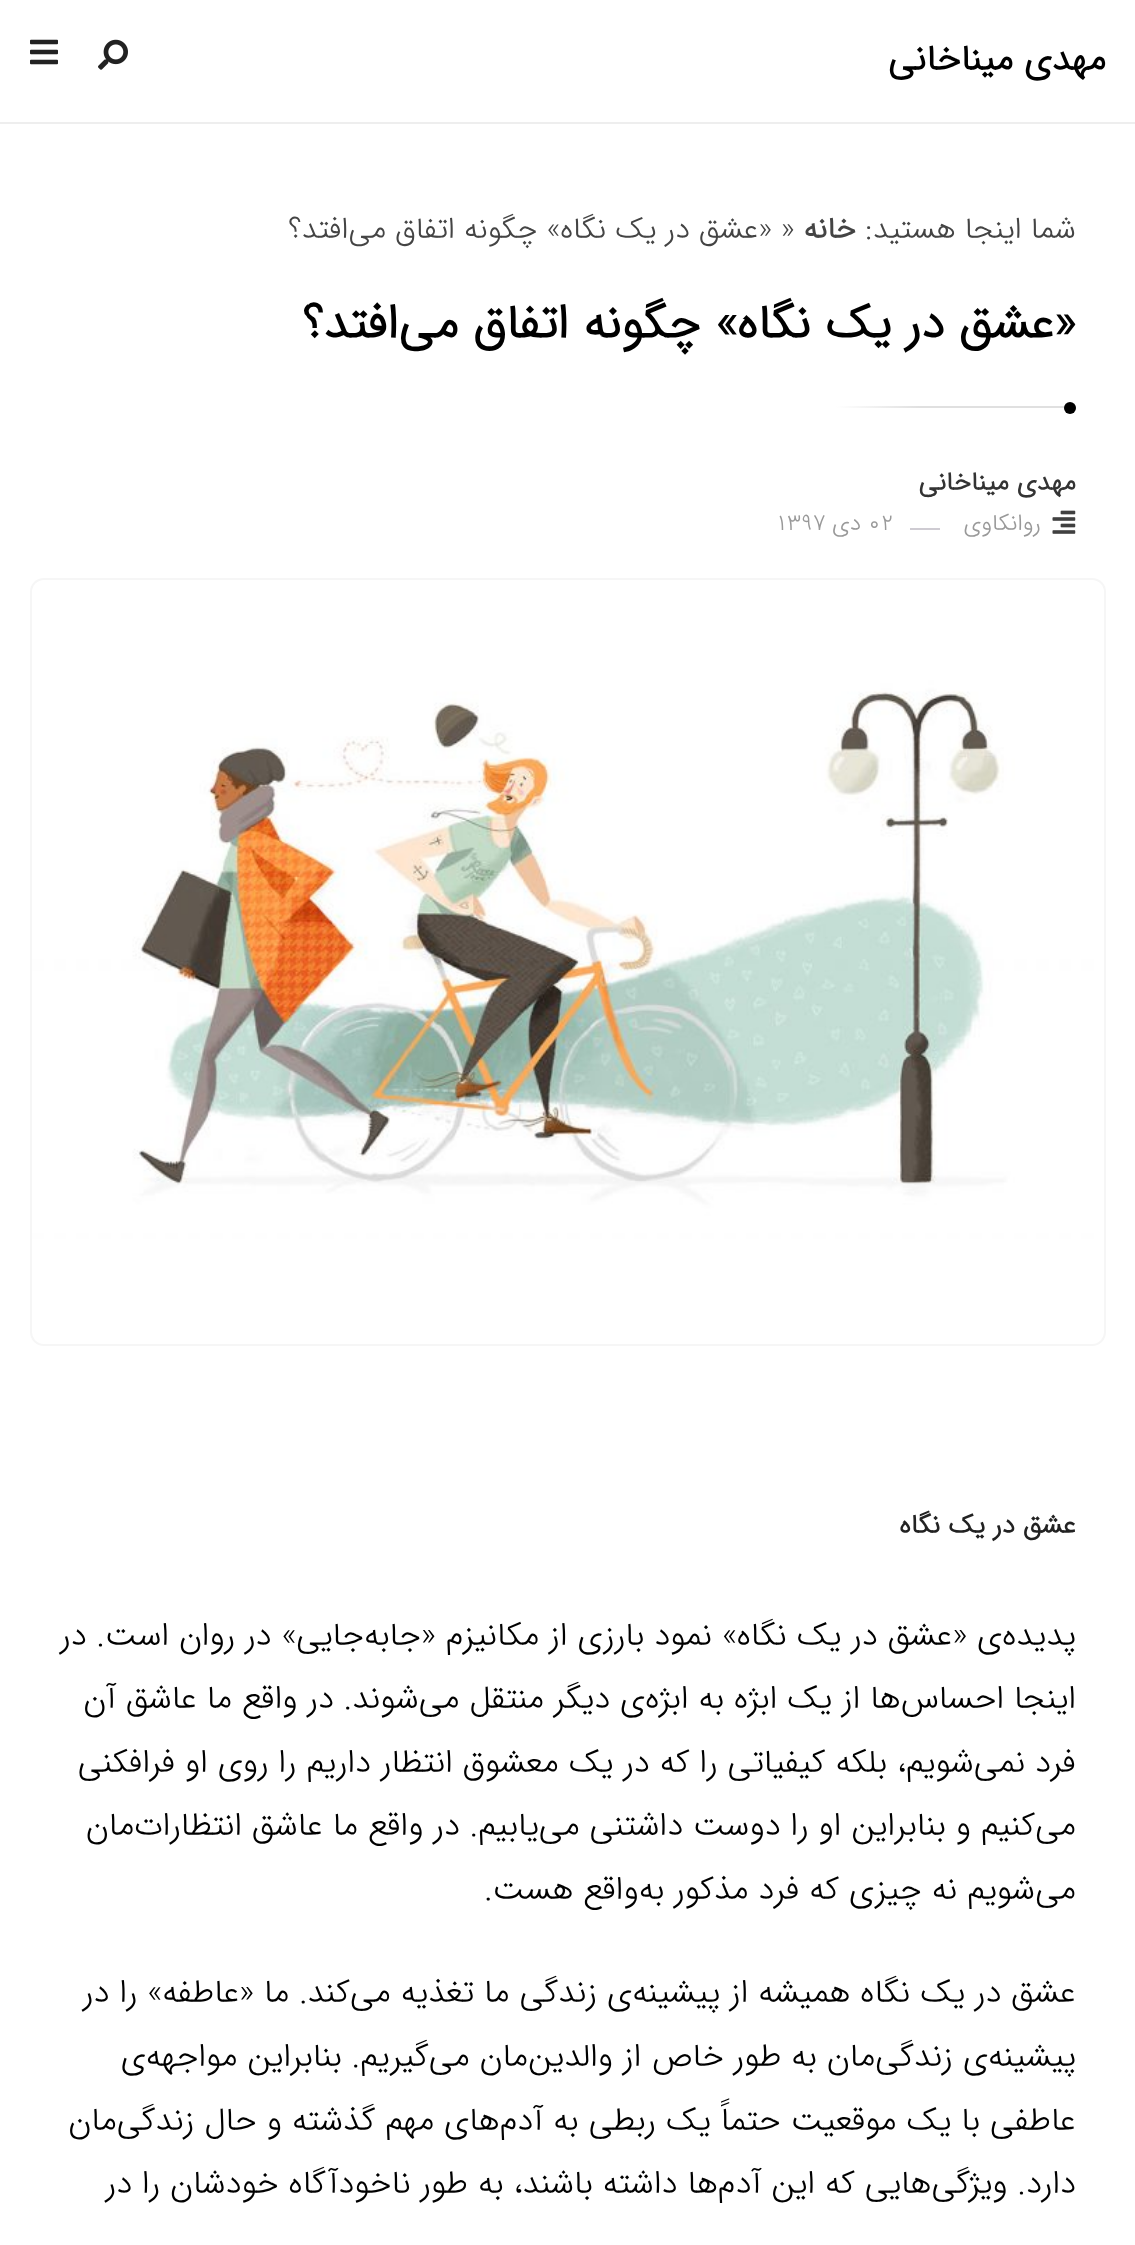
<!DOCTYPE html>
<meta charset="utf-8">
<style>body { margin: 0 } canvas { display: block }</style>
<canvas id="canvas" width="1135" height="2245"></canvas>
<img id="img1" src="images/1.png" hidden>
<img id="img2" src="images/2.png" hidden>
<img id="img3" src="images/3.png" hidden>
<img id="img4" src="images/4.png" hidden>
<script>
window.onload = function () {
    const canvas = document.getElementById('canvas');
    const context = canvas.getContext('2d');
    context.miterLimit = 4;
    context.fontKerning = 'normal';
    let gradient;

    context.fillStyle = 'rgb(255, 255, 255)';
    context.fillRect(0, 0, 1135, 2245);
    context.fillStyle = 'rgb(238, 238, 238)';
    context.fillRect(0, 122, 1135, 2);
    context.drawImage(document.getElementById('img1'), 98, 39, 30, 31);
    context.drawImage(document.getElementById('img2'), 30, 39, 28, 26);
    gradient = context.createLinearGradient(1076, 406, 836, 406);
    gradient.addColorStop(0, 'rgb(224, 224, 224)');
    gradient.addColorStop(0.65, 'rgb(224, 224, 224)');
    gradient.addColorStop(1, 'rgb(255, 255, 255)');
    context.fillStyle = gradient;
    context.fillRect(836, 406, 240, 2);
    context.fillStyle = 'rgb(0, 0, 0)';
    context.beginPath();
    context.arc(1070, 408, 6, 0, 2 * Math.PI);
    context.fill();
    context.drawImage(document.getElementById('img3'), 1052, 510, 24, 24);
    context.fillStyle = 'rgb(206, 203, 210)';
    context.fillRect(910, 528, 30, 2);
    context.fillStyle = 'rgb(246, 246, 246)';
    context.beginPath();
    context.roundRect(30, 578, 1076, 768, 14);
    context.fill();
    context.drawImage(document.getElementById('img4'), 32, 580, 1072, 764);
    context.direction = 'rtl';
    context.font = 'bold 36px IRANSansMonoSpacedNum';
    context.fillStyle = 'rgb(0, 0, 0)';
    context.fillText('مهدی میناخانی', 1106, 70);
    context.font = '300 30px IRANSansMonoSpacedNum';
    context.fillStyle = 'rgb(68, 68, 68)';
    context.fillText('شما اینجا هستید:', 1076, 238);
    context.font = 'bold 30px IRANSansMonoSpacedNum';
    context.fillText('خانه', 856, 238);
    context.direction = 'ltr';
    context.font = '300 30px IRANSansMonoSpacedNum';
    context.fillText('»', 781, 238);
    context.direction = 'rtl';
    context.fillText('«عشق در یک نگاه» چگونه اتفاق می‌افتد؟', 772, 238);
    context.font = 'bold 48px IRANSansMonoSpacedNum';
    context.fillStyle = 'rgb(0, 0, 0)';
    context.fillText('«عشق در یک نگاه» چگونه اتفاق می‌افتد؟', 1076, 338);
    context.font = 'bold 26px IRANSansMonoSpacedNum';
    context.fillStyle = 'rgb(51, 51, 51)';
    context.fillText('مهدی میناخانی', 1076, 490);
    context.font = '300 23px IRANSansMonoSpacedNum';
    context.fillStyle = 'rgb(153, 153, 153)';
    context.fillText('روانکاوی', 1041, 530);
    context.direction = 'ltr';
    context.fillText('۰۲', 868, 530);
    context.direction = 'rtl';
    context.fillText('دی', 861, 530);
    context.direction = 'ltr';
    context.fillText('۱۳۹۷', 775, 530);
    context.direction = 'rtl';
    context.font = 'bold 26.75px IRANSansMonoSpacedNum';
    context.fillStyle = 'rgb(34, 34, 34)';
    context.fillText('عشق در یک نگاه', 1076, 1533);
    context.font = '300 32.65px IRANSansMonoSpacedNum';
    context.fillStyle = 'rgb(0, 0, 0)';
    context.fillText('پدیده‌ی «عشق در یک نگاه» نمود بارزی از مکانیزم «جابه‌جایی» در روان است. در', 1076, 1645);
    context.fillText('اینجا احساس‌ها از یک ابژه به ابژه‌ی دیگر منتقل می‌شوند. در واقع ما عاشق آن', 1076, 1708);
    context.fillText('فرد نمی‌شویم، بلکه کیفیاتی را که در یک معشوق انتظار داریم را روی او فرافکنی', 1076, 1772);
    context.fillText('می‌کنیم و بنابراین او را دوست داشتنی می‌یابیم. در واقع ما عاشق انتظارات‌مان', 1076, 1835);
    context.fillText('می‌شویم نه چیزی که فرد مذکور به‌واقع هست.', 1076, 1899);
    context.fillText('عشق در یک نگاه همیشه از پیشینه‌ی زندگی ما تغذیه می‌کند. ما «عاطفه» را در', 1076, 2002);
    context.fillText('پیشینه‌ی زندگی‌مان به طور خاص از والدین‌مان می‌گیریم. بنابراین مواجهه‌ی', 1076, 2066);
    context.fillText('عاطفی با یک موقعیت حتماً یک ربطی به آدم‌های مهم گذشته و حال زندگی‌مان', 1076, 2130);
    context.fillText('دارد. ویژگی‌هایی که این آدم‌ها داشته باشند، به طور ناخودآگاه خودشان را در', 1076, 2193);
};
</script>
